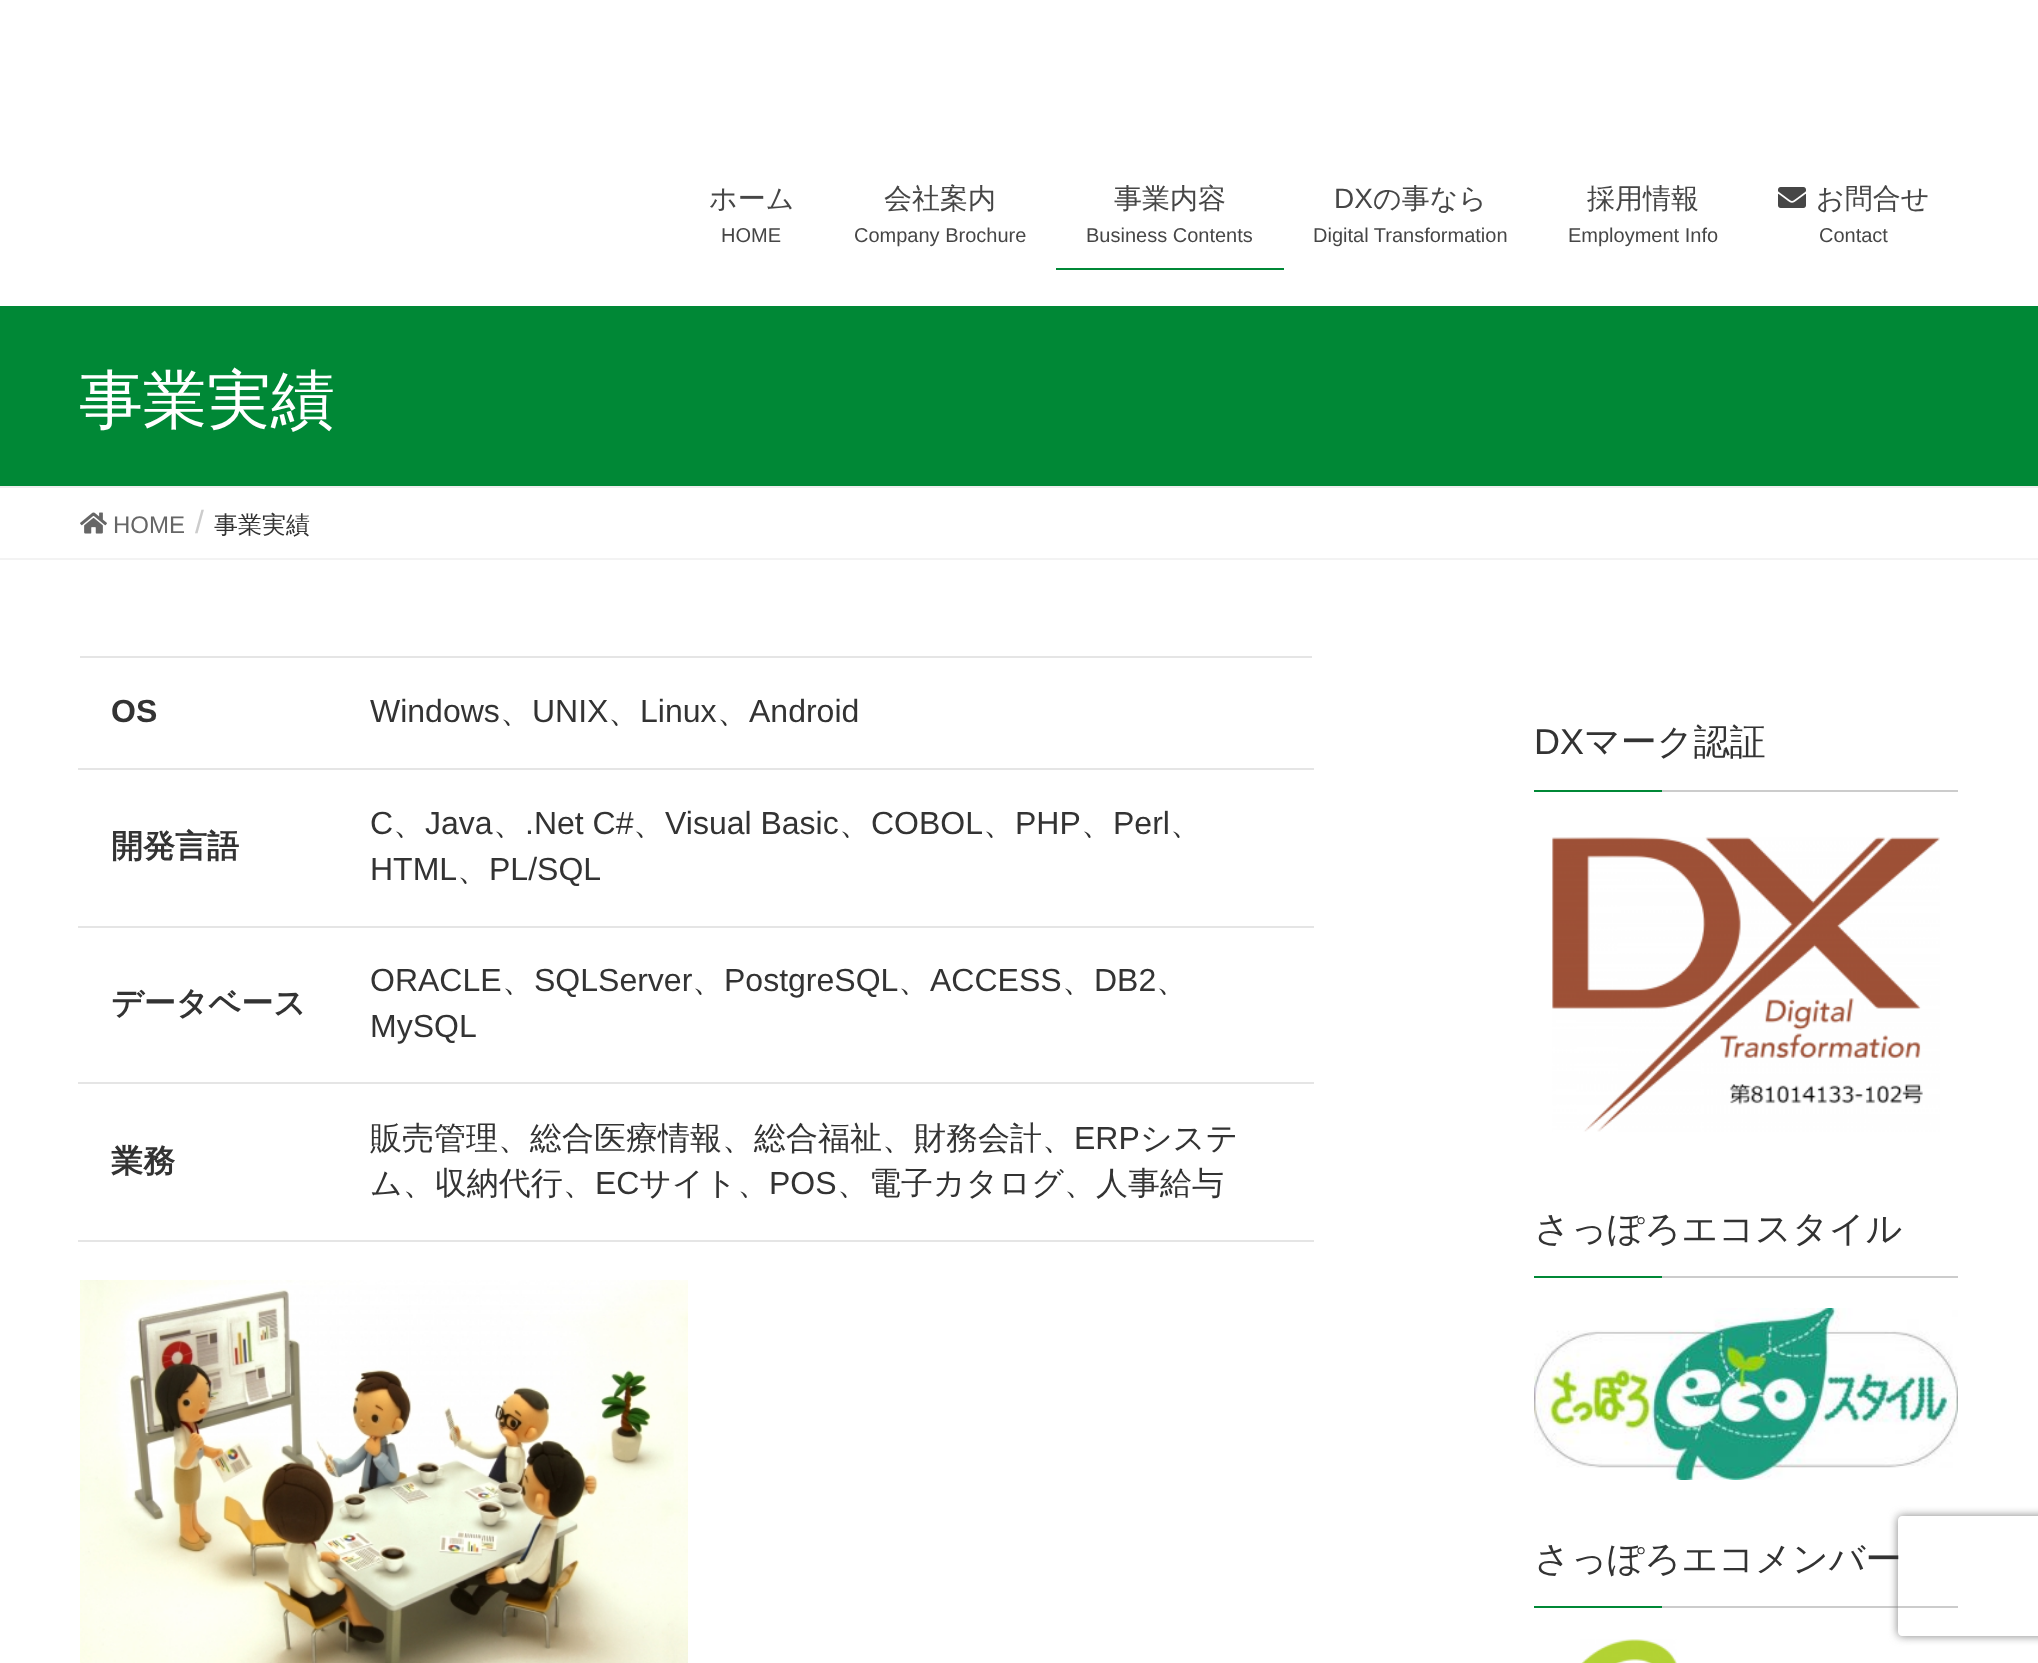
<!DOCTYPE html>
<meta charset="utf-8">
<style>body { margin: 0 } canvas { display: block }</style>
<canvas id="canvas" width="2038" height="1663"></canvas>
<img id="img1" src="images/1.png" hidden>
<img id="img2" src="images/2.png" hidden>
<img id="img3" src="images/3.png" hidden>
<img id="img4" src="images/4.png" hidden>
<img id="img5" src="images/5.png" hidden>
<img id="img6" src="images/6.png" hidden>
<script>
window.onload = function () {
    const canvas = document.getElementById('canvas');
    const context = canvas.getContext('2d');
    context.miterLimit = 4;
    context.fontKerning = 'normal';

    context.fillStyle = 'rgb(255, 255, 255)';
    context.fillRect(0, 0, 2038, 1663);
    context.fillStyle = 'rgb(0, 136, 54)';
    context.fillRect(1056, 268, 228, 2);
    context.drawImage(document.getElementById('img1'), 1778, 187, 28, 21);
    context.fillRect(0, 306, 2038, 180);
    context.fillStyle = 'rgb(238, 238, 238)';
    context.fillRect(0, 486, 2038, 2);
    context.fillStyle = 'rgb(243, 243, 243)';
    context.fillRect(0, 558, 2038, 2);
    context.drawImage(document.getElementById('img2'), 80, 512, 27, 22);
    context.fillStyle = 'rgb(229, 229, 229)';
    context.fillRect(80, 656, 1232, 2);
    context.fillRect(78, 768, 1236, 2);
    context.fillRect(78, 926, 1236, 2);
    context.fillRect(78, 1082, 1236, 2);
    context.fillRect(78, 1240, 1236, 2);
    context.drawImage(document.getElementById('img3'), 80, 1280, 608, 383);
    context.fillStyle = 'rgb(204, 204, 204)';
    context.fillRect(1662, 790, 296, 2);
    context.fillStyle = 'rgb(0, 136, 54)';
    context.fillRect(1534, 790, 128, 2);
    context.drawImage(document.getElementById('img4'), 1552, 837, 388, 295);
    context.fillStyle = 'rgb(204, 204, 204)';
    context.fillRect(1662, 1276, 296, 2);
    context.fillStyle = 'rgb(0, 136, 54)';
    context.fillRect(1534, 1276, 128, 2);
    context.drawImage(document.getElementById('img5'), 1534, 1308, 424, 172);
    context.fillStyle = 'rgb(204, 204, 204)';
    context.fillRect(1662, 1606, 296, 2);
    context.fillStyle = 'rgb(0, 136, 54)';
    context.fillRect(1534, 1606, 128, 2);
    context.drawImage(document.getElementById('img6'), 1580, 1639, 97, 24);
    context.save();
    context.beginPath();
    context.moveTo(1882, 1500);
    context.lineTo(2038, 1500);
    context.lineTo(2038, 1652);
    context.lineTo(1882, 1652);
    context.closePath();
    context.moveTo(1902, 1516);
    context.lineTo(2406, 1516);
    context.bezierCurveTo(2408, 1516, 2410, 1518, 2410, 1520);
    context.lineTo(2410, 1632);
    context.bezierCurveTo(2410, 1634, 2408, 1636, 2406, 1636);
    context.lineTo(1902, 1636);
    context.bezierCurveTo(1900, 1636, 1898, 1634, 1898, 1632);
    context.lineTo(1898, 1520);
    context.bezierCurveTo(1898, 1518, 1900, 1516, 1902, 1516);
    context.closePath();
    context.clip('evenodd');
    context.fillStyle = 'rgb(128, 128, 128)';
    context.filter = 'blur(5px)';
    context.beginPath();
    context.roundRect(1898, 1516, 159, 120, 4);
    context.fill();
    context.filter = 'none';
    context.restore();
    context.font = '500 28px WenQuanYi Zen Hei';
    context.fillStyle = 'rgb(70, 70, 70)';
    context.fillText('ホーム', 709, 208);
    context.font = '20px Liberation Sans';
    context.fillText('HOME', 721, 242);
    context.font = '500 28px WenQuanYi Zen Hei';
    context.fillText('会社案内', 884, 208);
    context.font = '20px Liberation Sans';
    context.fillText('Company Brochure', 854, 242);
    context.font = '500 28px WenQuanYi Zen Hei';
    context.fillText('事業内容', 1114, 208);
    context.font = '20px Liberation Sans';
    context.fillText('Business Contents', 1086, 242);
    context.font = '28px Liberation Sans';
    context.fillText('DX', 1334, 208);
    context.font = '500 28px WenQuanYi Zen Hei';
    context.fillText('の事なら', 1373, 208);
    context.font = '20px Liberation Sans';
    context.fillText('Digital Transformation', 1313, 242);
    context.font = '500 28px WenQuanYi Zen Hei';
    context.fillText('採用情報', 1587, 208);
    context.font = '20px Liberation Sans';
    context.fillText('Employment Info', 1568, 242);
    context.font = '500 28px WenQuanYi Zen Hei';
    context.fillText('お問合せ', 1816, 208);
    context.font = '20px Liberation Sans';
    context.fillText('Contact', 1819, 242);
    context.font = '500 64px WenQuanYi Zen Hei';
    context.fillStyle = 'rgb(255, 255, 255)';
    context.fillText('事業実績', 79, 422);
    context.font = '24px Liberation Sans';
    context.fillStyle = 'rgb(102, 102, 102)';
    context.fillText('HOME', 113, 533);
    context.font = '32px Liberation Sans';
    context.fillStyle = 'rgb(204, 204, 204)';
    context.fillText('/', 195, 533);
    context.font = '500 24px WenQuanYi Zen Hei';
    context.fillStyle = 'rgb(51, 51, 51)';
    context.fillText('事業実績', 214, 533);
    context.font = 'bold 32px Liberation Sans';
    context.fillText('OS', 111, 722);
    context.font = '32px Liberation Sans';
    context.fillText('Windows', 370, 722);
    context.font = '500 32px WenQuanYi Zen Hei';
    context.fillText('、', 500, 722);
    context.font = '32px Liberation Sans';
    context.fillText('UNIX', 532, 722);
    context.font = '500 32px WenQuanYi Zen Hei';
    context.fillText('、', 608, 722);
    context.font = '32px Liberation Sans';
    context.fillText('Linux', 640, 722);
    context.font = '500 32px WenQuanYi Zen Hei';
    context.fillText('、', 717, 722);
    context.font = '32px Liberation Sans';
    context.fillText('Android', 749, 722);
    context.font = 'bold 32px WenQuanYi Zen Hei';
    context.fillText('開発言語', 111, 857);
    context.font = '32px Liberation Sans';
    context.fillText('C', 370, 834);
    context.font = '500 32px WenQuanYi Zen Hei';
    context.fillText('、', 393, 834);
    context.font = '32px Liberation Sans';
    context.fillText('Java', 425, 834);
    context.font = '500 32px WenQuanYi Zen Hei';
    context.fillText('、', 493, 834);
    context.font = '32px Liberation Sans';
    context.fillText('.Net C#', 525, 834);
    context.font = '500 32px WenQuanYi Zen Hei';
    context.fillText('、', 633, 834);
    context.font = '32px Liberation Sans';
    context.fillText('Visual Basic', 665, 834);
    context.font = '500 32px WenQuanYi Zen Hei';
    context.fillText('、', 839, 834);
    context.font = '32px Liberation Sans';
    context.fillText('COBOL', 871, 834);
    context.font = '500 32px WenQuanYi Zen Hei';
    context.fillText('、', 983, 834);
    context.font = '32px Liberation Sans';
    context.fillText('PHP', 1015, 834);
    context.font = '500 32px WenQuanYi Zen Hei';
    context.fillText('、', 1081, 834);
    context.font = '32px Liberation Sans';
    context.fillText('Perl', 1113, 834);
    context.font = '500 32px WenQuanYi Zen Hei';
    context.fillText('、', 1170, 834);
    context.font = '32px Liberation Sans';
    context.fillText('HTML', 370, 880);
    context.font = '500 32px WenQuanYi Zen Hei';
    context.fillText('、', 457, 880);
    context.font = '32px Liberation Sans';
    context.fillText('PL/SQL', 489, 880);
    context.font = 'bold 32px WenQuanYi Zen Hei';
    context.fillText('データベース', 111, 1014);
    context.font = '32px Liberation Sans';
    context.fillText('ORACLE', 370, 991);
    context.font = '500 32px WenQuanYi Zen Hei';
    context.fillText('、', 502, 991);
    context.font = '32px Liberation Sans';
    context.fillText('SQLServer', 534, 991);
    context.font = '500 32px WenQuanYi Zen Hei';
    context.fillText('、', 692, 991);
    context.font = '32px Liberation Sans';
    context.fillText('PostgreSQL', 724, 991);
    context.font = '500 32px WenQuanYi Zen Hei';
    context.fillText('、', 898, 991);
    context.font = '32px Liberation Sans';
    context.fillText('ACCESS', 930, 991);
    context.font = '500 32px WenQuanYi Zen Hei';
    context.fillText('、', 1062, 991);
    context.font = '32px Liberation Sans';
    context.fillText('DB2', 1094, 991);
    context.font = '500 32px WenQuanYi Zen Hei';
    context.fillText('、', 1156, 991);
    context.font = '32px Liberation Sans';
    context.fillText('MySQL', 370, 1037);
    context.font = 'bold 32px WenQuanYi Zen Hei';
    context.fillText('業務', 111, 1172);
    context.font = '500 32px WenQuanYi Zen Hei';
    context.fillText('販売管理、総合医療情報、総合福祉、財務会計、', 370, 1149);
    context.font = '32px Liberation Sans';
    context.fillText('ERP', 1074, 1149);
    context.font = '500 32px WenQuanYi Zen Hei';
    context.fillText('システ', 1140, 1149);
    context.fillText('ム、収納代行、', 370, 1194);
    context.font = '32px Liberation Sans';
    context.fillText('EC', 595, 1194);
    context.font = '500 32px WenQuanYi Zen Hei';
    context.fillText('サイト、', 639, 1194);
    context.font = '32px Liberation Sans';
    context.fillText('POS', 769, 1194);
    context.font = '500 32px WenQuanYi Zen Hei';
    context.fillText('、電子カタログ、人事給与', 837, 1194);
    context.font = '36px Liberation Sans';
    context.fillText('DX', 1534, 754);
    context.font = '500 36px WenQuanYi Zen Hei';
    context.fillText('マーク認証', 1584, 754);
    context.fillText('さっぽろエコスタイル', 1534, 1241);
    context.fillText('さっぽろエコメンバー', 1534, 1571);
};
</script>
